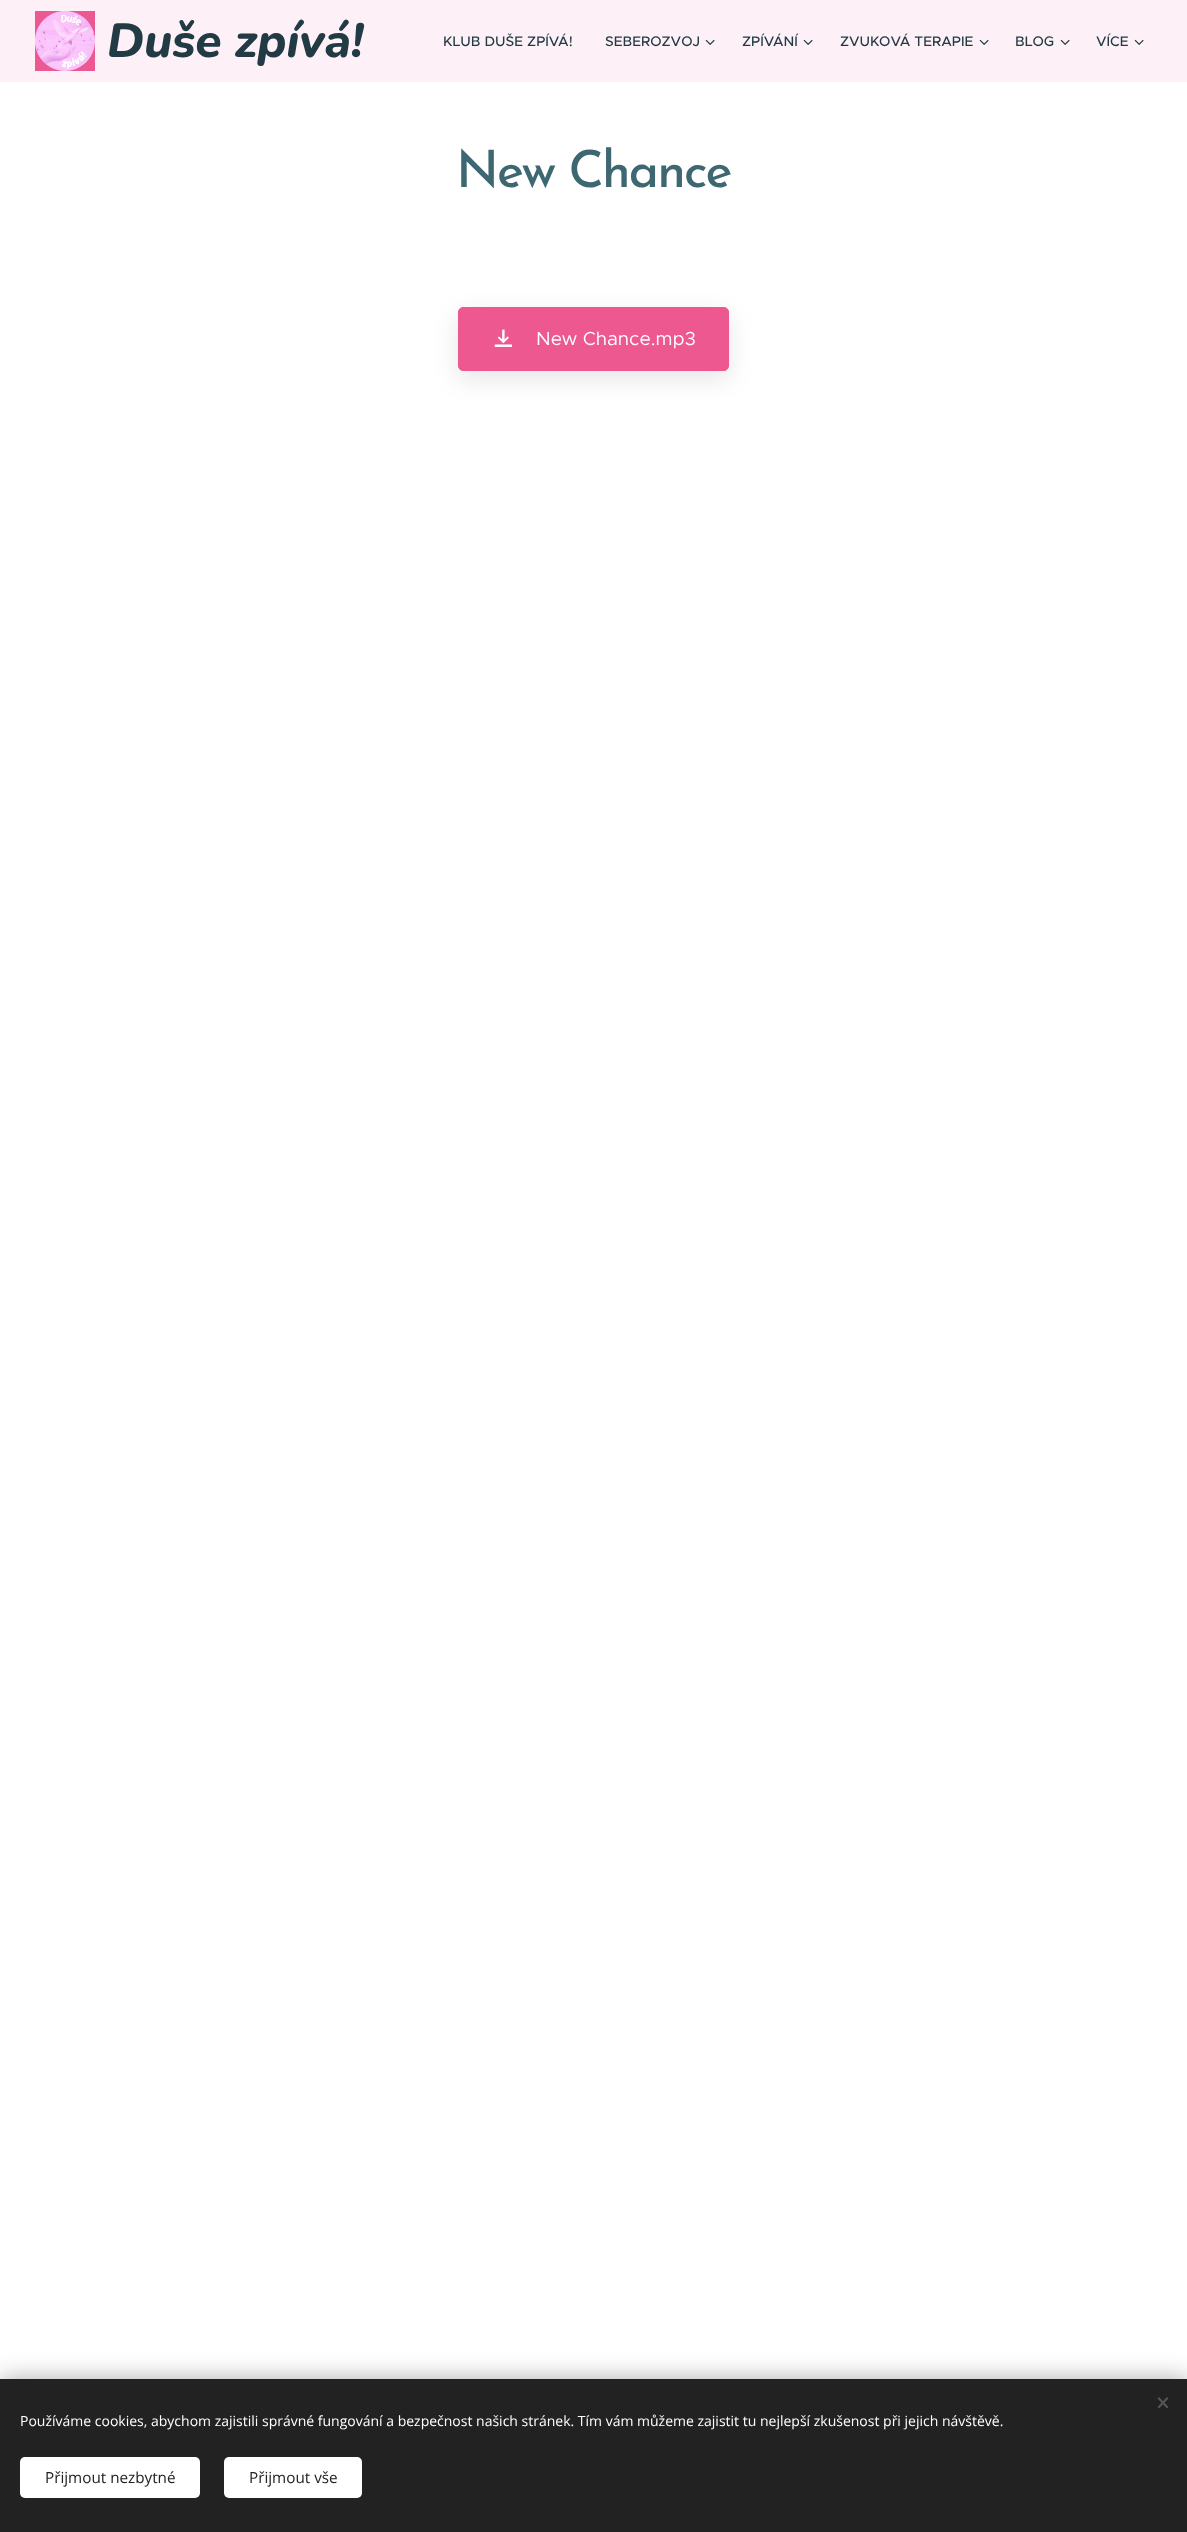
<!DOCTYPE html>
<meta charset="utf-8">
<style>body { margin: 0 } canvas { display: block }</style>
<canvas id="canvas" width="1187" height="2532"></canvas>
<img id="img1" src="images/1.png" hidden>
<img id="img2" src="images/2.png" hidden>
<img id="img3" src="images/3.png" hidden>
<script>
window.onload = function () {
    const canvas = document.getElementById('canvas');
    const context = canvas.getContext('2d');
    context.miterLimit = 4;
    context.fontKerning = 'normal';

    context.fillStyle = 'rgb(255, 255, 255)';
    context.fillRect(0, 0, 1187, 2532);
    context.fillStyle = 'rgb(253, 240, 247)';
    context.fillRect(0, 0, 1187, 82);
    context.drawImage(document.getElementById('img1'), 35, 11, 60, 60);
    context.drawImage(document.getElementById('img2'), 705, 39, 10, 6);
    context.drawImage(document.getElementById('img2'), 803, 39, 10, 6);
    context.drawImage(document.getElementById('img2'), 979, 39, 10, 6);
    context.drawImage(document.getElementById('img2'), 1060, 39, 10, 6);
    context.drawImage(document.getElementById('img2'), 1134, 39, 10, 6);
    context.fillStyle = 'rgba(0, 0, 0, 0.1)';
    context.filter = 'blur(12.5px)';
    context.beginPath();
    context.roundRect(458, 315, 271, 64, 5);
    context.fill();
    context.filter = 'none';
    context.fillStyle = 'rgb(237, 88, 145)';
    context.beginPath();
    context.roundRect(458.5, 307.5, 270, 63, 4.5);
    context.fill();
    context.strokeStyle = 'rgb(237, 88, 145)';
    context.stroke();
    context.drawImage(document.getElementById('img3'), 494, 329, 18, 18);
    context.fillStyle = 'rgba(0, 0, 0, 0.33)';
    context.filter = 'blur(12.5px)';
    context.beginPath();
    context.rect(0, 2379, 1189, 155);
    context.fill();
    context.filter = 'none';
    context.fillStyle = 'rgb(34, 34, 34)';
    context.fillRect(0, 2379, 1187, 153);
    context.fillStyle = 'rgb(85, 85, 85)';
    context.beginPath();
    context.moveTo(1157.5, 2407);
    context.lineTo(1167, 2397);
    context.lineTo(1168.5, 2398.5);
    context.lineTo(1159, 2408.5);
    context.closePath();
    context.fill();
    context.beginPath();
    context.moveTo(1159, 2397);
    context.lineTo(1168.5, 2407);
    context.lineTo(1167, 2408.5);
    context.lineTo(1157.5, 2398.5);
    context.closePath();
    context.fill();
    context.fillStyle = 'rgb(255, 255, 255)';
    context.beginPath();
    context.roundRect(20, 2457, 180, 41, 5);
    context.fill();
    context.beginPath();
    context.roundRect(224, 2457, 138, 41, 5);
    context.fill();
    context.letterSpacing = '-0.25px';
    context.font = 'italic 800 48px Nunito';
    context.fillStyle = 'rgb(33, 58, 67)';
    context.fillText('Duše zpívá!', 107, 57);
    context.letterSpacing = '0px';
    context.font = '500 14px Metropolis';
    context.fillText('KLUB DUŠE ZPÍVÁ!', 443, 46);
    context.fillText('SEBEROZVOJ', 605, 46);
    context.fillText('ZPÍVÁNÍ', 742, 46);
    context.fillText('ZVUKOVÁ TERAPIE', 840, 46);
    context.fillText('BLOG', 1015, 46);
    context.fillText('VÍCE', 1096, 46);
    context.letterSpacing = '-2px';
    context.font = '500 51.25px Josefin Sans';
    context.fillStyle = 'rgb(61, 104, 114)';
    context.fillText('New Chance', 456, 187);
    context.letterSpacing = '0px';
    context.font = '19px Metropolis';
    context.fillStyle = 'rgb(255, 255, 255)';
    context.fillText('New Chance.mp3', 536, 345);
    context.font = '14px Open Sans';
    context.fillText('Používáme cookies, abychom zajistili správné fungování a bezpečnost našich stránek. Tím vám můžeme zajistit tu nejlepší zkušenost při jejich návštěvě.', 20, 2426);
    context.font = '15.25px Open Sans';
    context.fillStyle = 'rgb(34, 34, 34)';
    context.fillText('Přijmout nezbytné', 45, 2483);
    context.fillText('Přijmout vše', 249, 2483);
};
</script>
